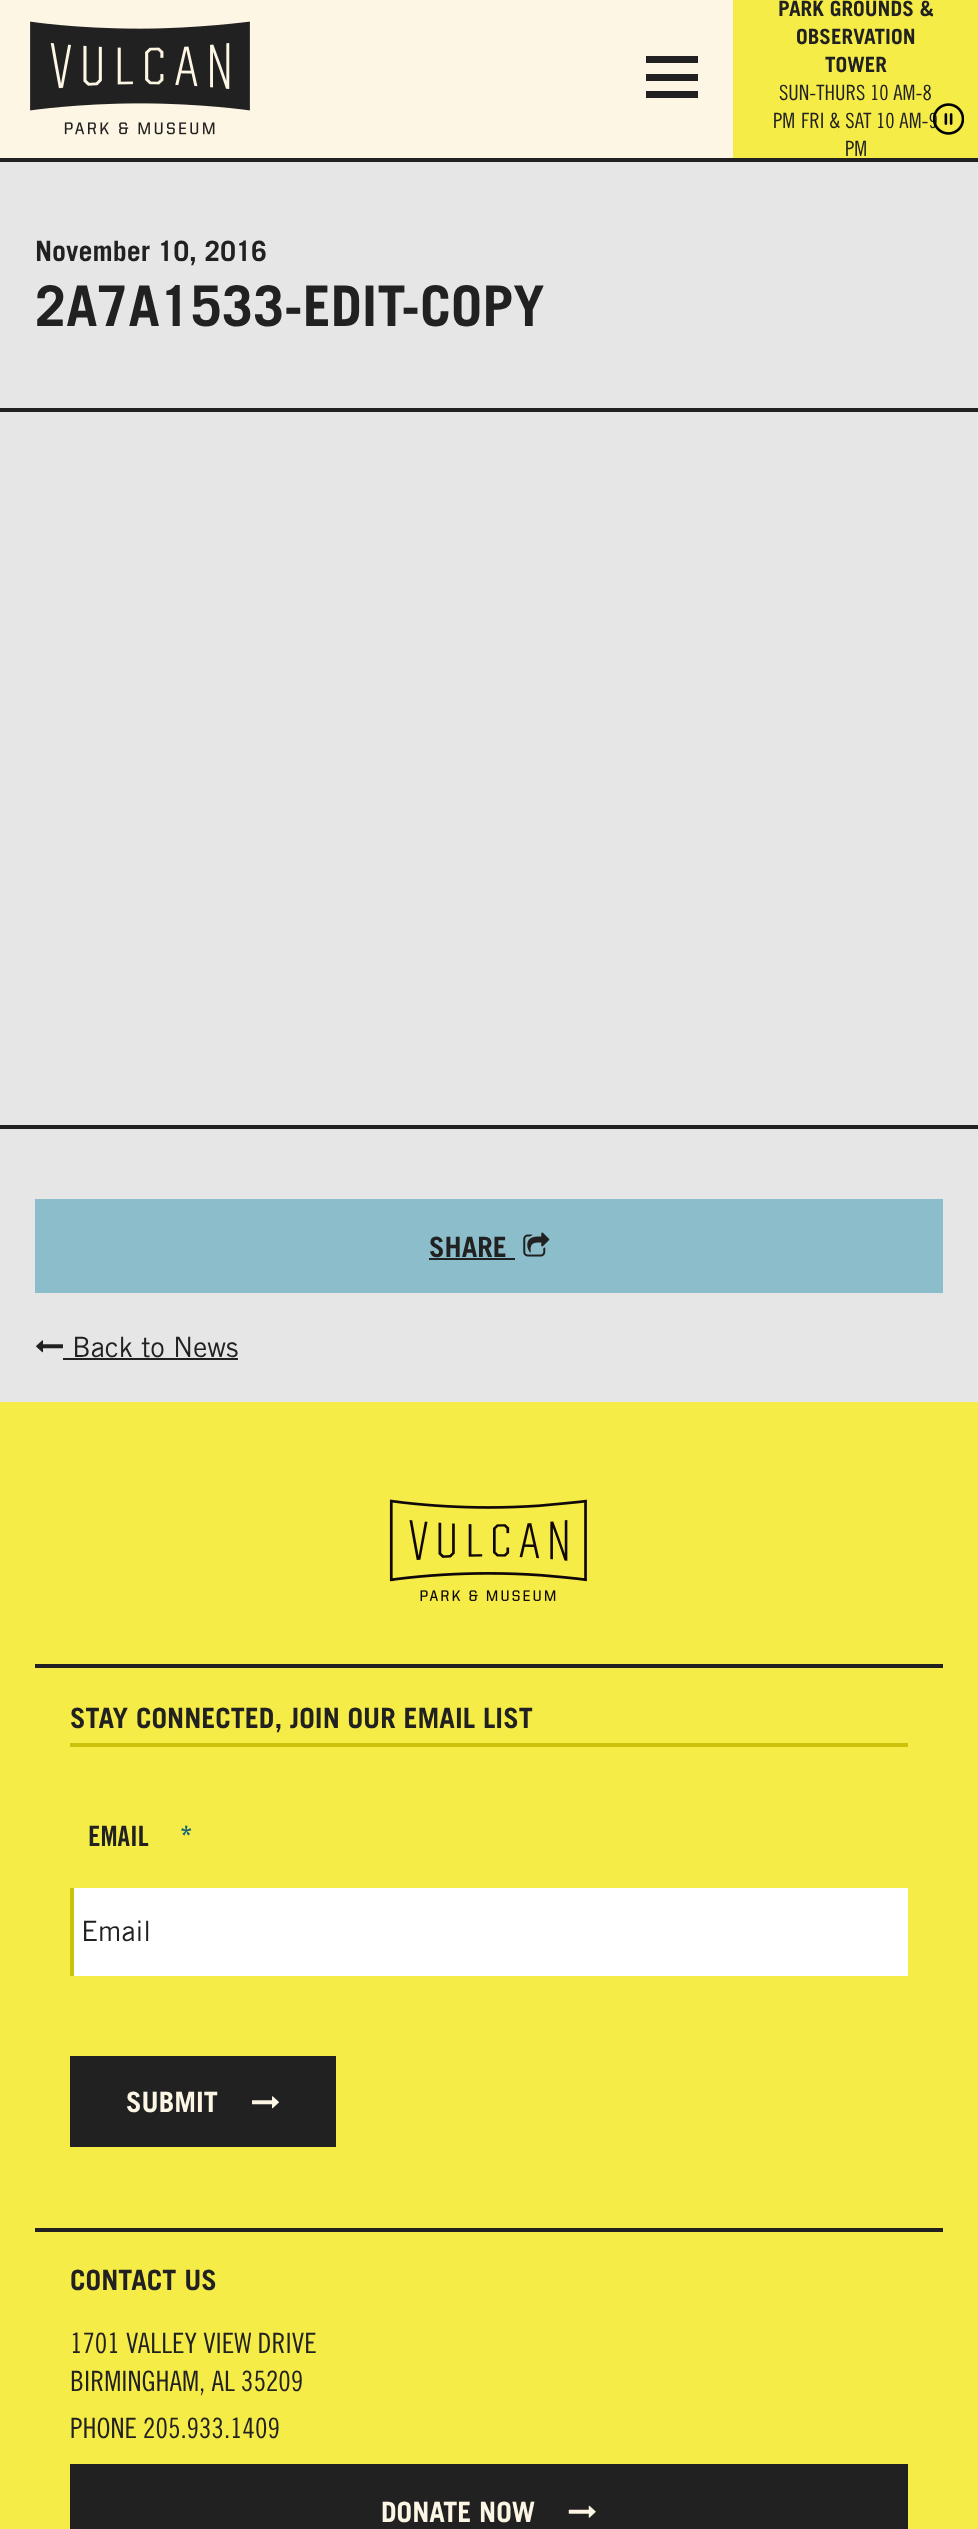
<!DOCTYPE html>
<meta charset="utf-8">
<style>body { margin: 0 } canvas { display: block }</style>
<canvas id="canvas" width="978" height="2529"></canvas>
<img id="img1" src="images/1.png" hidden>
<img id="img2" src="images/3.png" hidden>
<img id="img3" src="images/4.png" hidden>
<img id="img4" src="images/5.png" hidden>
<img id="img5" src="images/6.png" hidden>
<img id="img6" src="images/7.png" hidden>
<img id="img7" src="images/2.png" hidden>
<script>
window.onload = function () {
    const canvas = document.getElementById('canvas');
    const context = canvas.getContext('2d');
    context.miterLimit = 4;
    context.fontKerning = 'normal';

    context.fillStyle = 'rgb(230, 230, 230)';
    context.fillRect(0, 0, 978, 2529);
    context.fillStyle = 'rgb(254, 246, 228)';
    context.fillRect(0, 0, 733, 158);
    context.drawImage(document.getElementById('img1'), 30, 21, 220, 114);
    context.fillStyle = 'rgb(33, 33, 33)';
    context.fillRect(646, 56, 52, 7);
    context.fillRect(646, 74, 52, 7);
    context.fillRect(646, 91, 52, 7);
    context.fillStyle = 'rgb(245, 236, 72)';
    context.fillRect(733, 0, 245, 158);
    context.fillStyle = 'rgb(33, 33, 33)';
    context.fillRect(0, 158, 978, 4);
    context.fillRect(0, 408, 978, 4);
    context.fillRect(0, 1125, 978, 4);
    context.fillStyle = 'rgb(140, 189, 202)';
    context.fillRect(35, 1199, 908, 94);
    context.fillStyle = 'rgb(33, 33, 33)';
    context.fillRect(429, 1258, 86, 2);
    context.drawImage(document.getElementById('img2'), 523, 1232, 27, 25);
    context.drawImage(document.getElementById('img3'), 36, 1340, 27, 13);
    context.fillRect(63, 1358, 175, 2);
    context.fillStyle = 'rgb(245, 236, 72)';
    context.fillRect(0, 1402, 978, 1127);
    context.fillStyle = 'rgb(33, 33, 33)';
    context.fillRect(35, 1664, 908, 4);
    context.drawImage(document.getElementById('img4'), 389, 1499, 198, 102);
    context.fillRect(35, 2228, 908, 4);
    context.fillStyle = 'rgb(204, 194, 11)';
    context.fillRect(70, 1743, 838, 4);
    context.fillStyle = 'rgb(255, 255, 255)';
    context.fillRect(74, 1888, 834, 88);
    context.fillStyle = 'rgb(204, 194, 11)';
    context.fillRect(70, 1888, 4, 88);
    context.fillStyle = 'rgb(33, 33, 33)';
    context.fillRect(70, 2056, 266, 91);
    context.drawImage(document.getElementById('img5'), 252, 2096, 27, 13);
    context.fillRect(70, 2464, 838, 65);
    context.drawImage(document.getElementById('img6'), 568, 2505, 28, 13);
    context.font = 'bold 21px Trade Gothic';
    context.fillText('PARK GROUNDS &', 778, 16);
    context.fillText('OBSERVATION', 796, 44);
    context.fillText('TOWER', 825, 72);
    context.font = '21px "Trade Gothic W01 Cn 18"';
    context.fillText('SUN-THURS 10 AM-8', 779, 100);
    context.fillText('PM', 773, 128);
    context.fillText('FRI & SAT 10 AM-9', 801, 128);
    context.fillText('PM', 845, 156);
    context.drawImage(document.getElementById('img7'), 933, 103, 31, 32);
    context.font = 'bold 28px Trade Gothic';
    context.fillText('November 10, 2016', 35, 261);
    context.font = 'bold 56px Trade Gothic';
    context.fillText('2A7A1533-EDIT-COPY', 35, 326);
    context.font = 'bold 28px Trade Gothic';
    context.fillText('SHARE', 429, 1257);
    context.font = '28px Trade Gothic';
    context.fillText('Back to News', 72, 1357);
    context.font = 'bold 28px Trade Gothic';
    context.fillText('STAY CONNECTED, JOIN OUR EMAIL LIST', 70, 1728);
    context.font = 'bold 28px "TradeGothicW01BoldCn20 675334"';
    context.fillText('EMAIL', 88, 1846);
    context.fillStyle = 'rgb(20, 100, 118)';
    context.fillText('*', 180, 1846);
    context.font = '28px Trade Gothic';
    context.fillStyle = 'rgb(33, 33, 33)';
    context.fillText('Email', 81, 1941);
    context.font = 'bold 28px Trade Gothic';
    context.fillStyle = 'rgb(254, 246, 228)';
    context.fillText('SUBMIT', 126, 2112);
    context.fillStyle = 'rgb(33, 33, 33)';
    context.fillText('CONTACT US', 70, 2290);
    context.font = '28px "Trade Gothic W01 Cn 18"';
    context.fillText('1701 VALLEY VIEW DRIVE', 70, 2353);
    context.fillText('BIRMINGHAM, AL 35209', 70, 2391);
    context.fillText('PHONE 205.933.1409', 70, 2438);
    context.font = 'bold 28px Trade Gothic';
    context.fillStyle = 'rgb(254, 246, 228)';
    context.fillText('DONATE NOW', 381, 2522);
};
</script>
